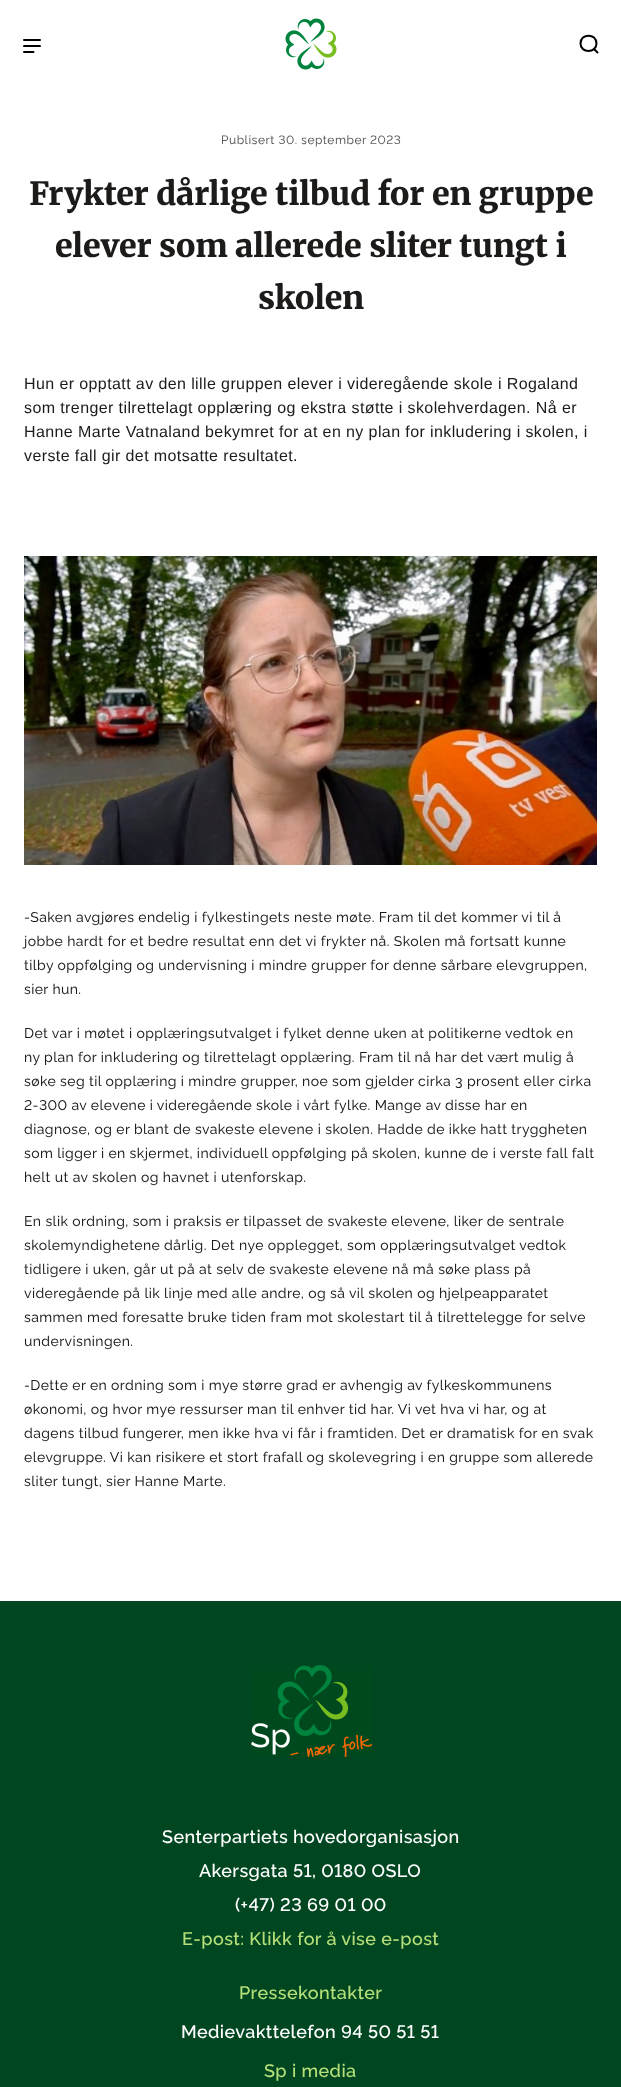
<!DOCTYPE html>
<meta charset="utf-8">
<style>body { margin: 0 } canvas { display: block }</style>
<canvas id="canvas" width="621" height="2087"></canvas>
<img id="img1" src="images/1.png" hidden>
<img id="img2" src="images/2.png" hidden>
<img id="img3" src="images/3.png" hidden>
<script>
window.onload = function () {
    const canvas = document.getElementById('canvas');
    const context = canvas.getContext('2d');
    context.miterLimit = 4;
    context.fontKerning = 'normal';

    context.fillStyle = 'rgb(255, 255, 255)';
    context.fillRect(0, 0, 621, 2087);
    context.beginPath();
    context.moveTo(33.5, 52);
    context.lineTo(24, 52);
    context.moveTo(40, 46);
    context.lineTo(24, 46);
    context.moveTo(40, 40);
    context.lineTo(24, 40);
    context.strokeStyle = 'rgb(0, 0, 0)';
    context.lineWidth = 2;
    context.lineCap = 'round';
    context.stroke();
    context.drawImage(document.getElementById('img1'), 285, 18, 52, 52);
    context.beginPath();
    context.moveTo(594, 49);
    context.lineTo(597.5, 52.5);
    context.moveTo(596.5, 43.5);
    context.bezierCurveTo(596.5, 53.5, 580.5, 53.5, 580.5, 43.5);
    context.bezierCurveTo(580.5, 33, 596.5, 33, 596.5, 43.5);
    context.closePath();
    context.stroke();
    context.drawImage(document.getElementById('img2'), 24, 556, 573, 309);
    context.fillStyle = 'rgb(0, 71, 33)';
    context.fillRect(0, 1601, 621, 486);
    context.drawImage(document.getElementById('img3'), 251, 1665, 121, 92);
    context.letterSpacing = '0.5px';
    context.font = '12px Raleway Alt';
    context.fillStyle = 'rgb(92, 90, 87)';
    context.fillText('Publisert 30. september 2023', 221, 144);
    context.letterSpacing = '-0.1px';
    context.font = '900 32px Merriweather';
    context.fillStyle = 'rgb(29, 27, 25)';
    context.fillText('Frykter dårlige tilbud for en gruppe', 29, 205);
    context.fillText('elever som allerede sliter tungt i', 55, 257);
    context.fillText('skolen', 258, 309);
    context.letterSpacing = '0.4px';
    context.font = '16px Liberation Sans';
    context.fillText('Hun er opptatt av den lille gruppen elever i videregående skole i Rogaland', 24, 389);
    context.fillText('som trenger tilrettelagt opplæring og ekstra støtte i skolehverdagen. Nå er', 24, 413);
    context.fillText('Hanne Marte Vatnaland bekymret for at en ny plan for inkludering i skolen, i', 24, 437);
    context.fillText('verste fall gir det motsatte resultatet.', 24, 461);
    context.font = '14px Raleway';
    context.fillText('-Saken avgjøres endelig i fylkestingets neste møte. Fram til det kommer vi til å', 24, 922);
    context.fillText('jobbe hardt for et bedre resultat enn det vi frykter nå. Skolen må fortsatt kunne', 24, 946);
    context.fillText('tilby oppfølging og undervisning i mindre grupper for denne sårbare elevgruppen,', 24, 970);
    context.fillText('sier hun.', 24, 994);
    context.fillText('Det var i møtet i opplæringsutvalget i fylket denne uken at politikerne vedtok en', 24, 1038);
    context.fillText('ny plan for inkludering og tilrettelagt opplæring. Fram til nå har det vært mulig å', 24, 1062);
    context.fillText('søke seg til opplæring i mindre grupper, noe som gjelder cirka 3 prosent eller cirka', 24, 1086);
    context.font = '14px Raleway Alt';
    context.fillText('2-300 av elevene i videregående skole i vårt fylke. Mange av disse har en', 24, 1110);
    context.font = '14px Raleway';
    context.fillText('diagnose, og er blant de svakeste elevene i skolen. Hadde de ikke hatt tryggheten', 24, 1134);
    context.fillText('som ligger i en skjermet, individuell oppfølging på skolen, kunne de i verste fall falt', 24, 1158);
    context.fillText('helt ut av skolen og havnet i utenforskap.', 24, 1182);
    context.fillText('En slik ordning, som i praksis er tilpasset de svakeste elevene, liker de sentrale', 24, 1226);
    context.fillText('skolemyndighetene dårlig. Det nye opplegget, som opplæringsutvalget vedtok', 24, 1250);
    context.fillText('tidligere i uken, går ut på at selv de svakeste elevene nå må søke plass på', 24, 1274);
    context.fillText('videregående på lik linje med alle andre, og så vil skolen og hjelpeapparatet', 24, 1298);
    context.fillText('sammen med foresatte bruke tiden fram mot skolestart til å tilrettelegge for selve', 24, 1322);
    context.fillText('undervisningen.', 24, 1346);
    context.fillText('-Dette er en ordning som i mye større grad er avhengig av fylkeskommunens', 24, 1390);
    context.fillText('økonomi, og hvor mye ressurser man til enhver tid har. Vi vet hva vi har, og at', 24, 1414);
    context.fillText('dagens tilbud fungerer, men ikke hva vi får i framtiden. Det er dramatisk for en svak', 24, 1438);
    context.fillText('elevgruppe. Vi kan risikere et stort frafall og skolevegring i en gruppe som allerede', 24, 1462);
    context.fillText('sliter tungt, sier Hanne Marte.', 24, 1486);
    context.font = '500 18px Raleway';
    context.fillStyle = 'rgb(255, 255, 255)';
    context.fillText('Senterpartiets hovedorganisasjon', 162, 1843);
    context.font = '500 18px Raleway Alt';
    context.fillText('Akersgata 51, 0180 OSLO', 199, 1877);
    context.fillText('(+47) 23 69 01 00', 235, 1911);
    context.font = '500 18px Raleway';
    context.fillStyle = 'rgb(179, 222, 120)';
    context.fillText('E-post: Klikk for å vise e-post', 182, 1945);
    context.fillText('Pressekontakter', 239, 1999);
    context.font = '500 18px Raleway Alt';
    context.fillStyle = 'rgb(255, 255, 255)';
    context.fillText('Medievakttelefon 94 50 51 51', 181, 2038);
    context.font = '500 18px Raleway';
    context.fillStyle = 'rgb(179, 222, 120)';
    context.fillText('Sp i media', 264, 2077);
};
</script>
